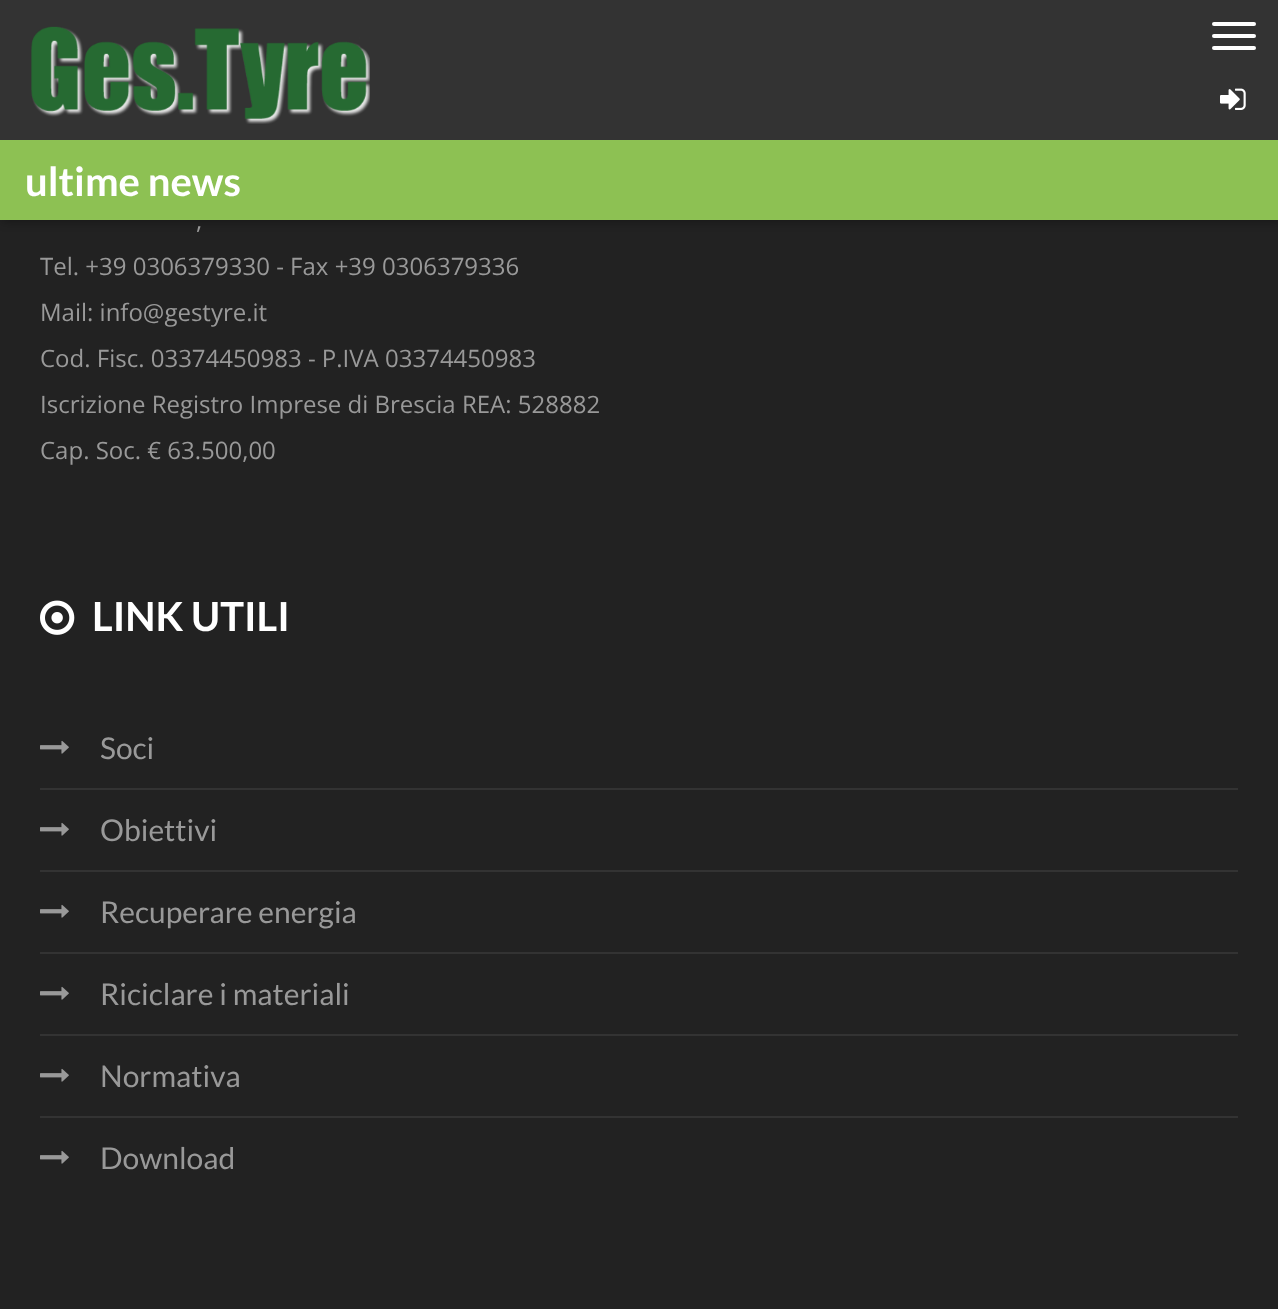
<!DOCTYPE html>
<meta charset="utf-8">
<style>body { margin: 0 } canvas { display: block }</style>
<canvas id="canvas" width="1278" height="1309"></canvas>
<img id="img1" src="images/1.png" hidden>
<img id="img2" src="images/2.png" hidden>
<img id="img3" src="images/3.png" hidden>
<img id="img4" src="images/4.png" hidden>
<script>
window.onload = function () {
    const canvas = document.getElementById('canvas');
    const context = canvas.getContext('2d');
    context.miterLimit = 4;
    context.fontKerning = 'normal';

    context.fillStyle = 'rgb(34, 34, 34)';
    context.fillRect(0, 0, 1278, 1309);
    context.fillStyle = 'rgba(0, 0, 0, 0.3)';
    context.filter = 'blur(5px)';
    context.beginPath();
    context.rect(2, 142, 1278, 80);
    context.fill();
    context.filter = 'none';
    context.fillStyle = 'rgb(51, 51, 51)';
    context.fillRect(0, 0, 1278, 140);
    context.drawImage(document.getElementById('img1'), 31, 26, 339, 98);
    context.fillStyle = 'rgb(255, 255, 255)';
    context.beginPath();
    context.roundRect(1212, 22, 44, 4, 2);
    context.fill();
    context.beginPath();
    context.roundRect(1212, 34, 44, 4, 2);
    context.fill();
    context.beginPath();
    context.roundRect(1212, 46, 44, 4, 2);
    context.fill();
    context.drawImage(document.getElementById('img2'), 1220, 88, 26, 22);
    context.fillStyle = 'rgb(141, 193, 83)';
    context.fillRect(0, 140, 1278, 80);
    context.drawImage(document.getElementById('img3'), 40, 600, 35, 35);
    context.drawImage(document.getElementById('img4'), 40, 740, 29, 14);
    context.fillStyle = 'rgb(51, 51, 51)';
    context.fillRect(40, 788, 1198, 2);
    context.drawImage(document.getElementById('img4'), 40, 822, 29, 14);
    context.fillRect(40, 870, 1198, 2);
    context.drawImage(document.getElementById('img4'), 40, 904, 29, 14);
    context.fillRect(40, 952, 1198, 2);
    context.drawImage(document.getElementById('img4'), 40, 986, 29, 14);
    context.fillRect(40, 1034, 1198, 2);
    context.drawImage(document.getElementById('img4'), 40, 1068, 29, 14);
    context.fillRect(40, 1116, 1198, 2);
    context.drawImage(document.getElementById('img4'), 40, 1150, 29, 14);
    context.font = 'bold 40px Lato';
    context.fillStyle = 'rgb(255, 255, 255)';
    context.fillText('ultime news', 25, 196);
    context.font = '24px Open Sans';
    context.fillStyle = 'rgb(153, 153, 153)';
    context.fillText(',', 196, 229);
    context.fillText('Tel. +39 0306379330 - Fax +39 0306379336', 40, 275);
    context.fillText('Mail: info@gestyre.it', 40, 321);
    context.fillText('Cod. Fisc. 03374450983 - P.IVA 03374450983', 40, 367);
    context.fillText('Iscrizione Registro Imprese di Brescia REA: 528882', 40, 413);
    context.fillText('Cap. Soc. € 63.500,00', 40, 459);
    context.font = 'bold 40px Lato';
    context.fillStyle = 'rgb(255, 255, 255)';
    context.fillText('LINK UTILI', 92, 631);
    context.font = '30px Lato';
    context.fillStyle = 'rgb(153, 153, 153)';
    context.fillText('Soci', 100, 759);
    context.fillText('Obiettivi', 100, 841);
    context.fillText('Recuperare energia', 100, 923);
    context.fillText('Riciclare i materiali', 100, 1005);
    context.fillText('Normativa', 100, 1087);
    context.fillText('Download', 100, 1169);
};
</script>
